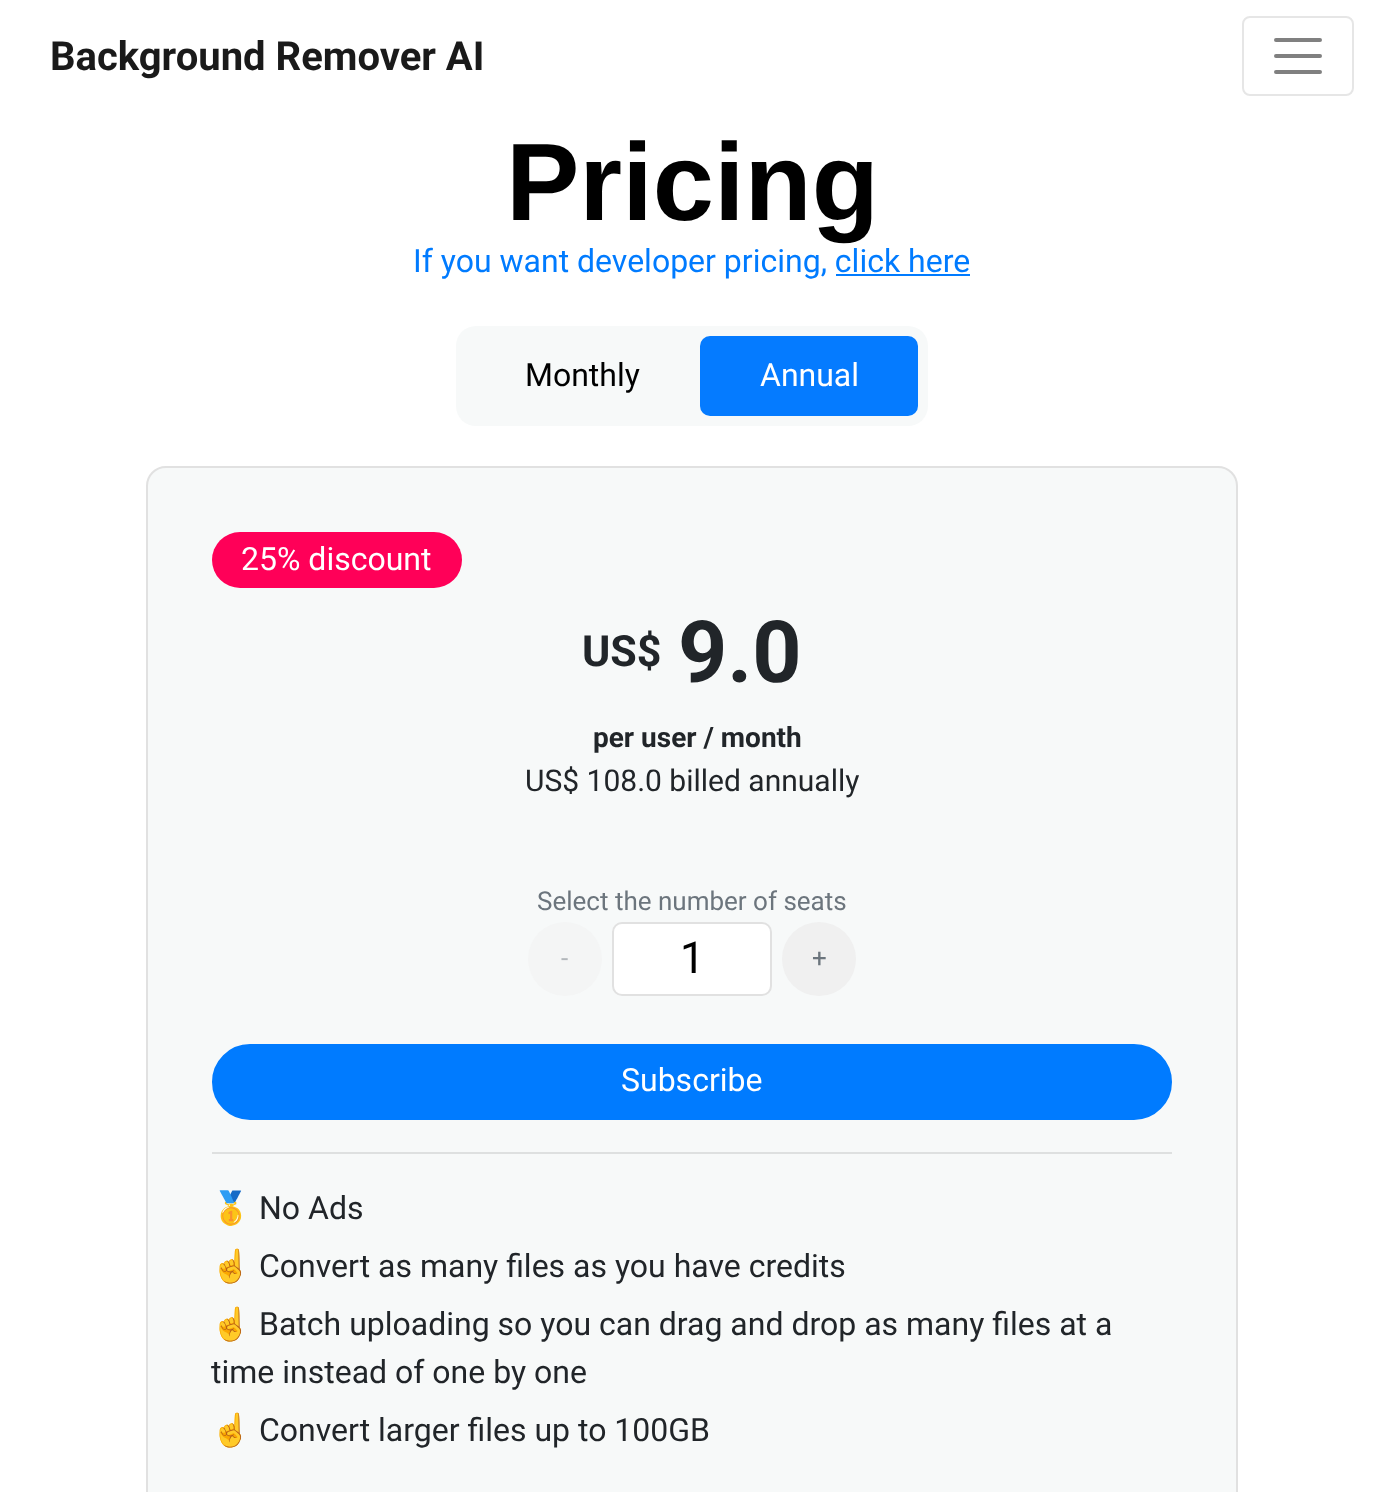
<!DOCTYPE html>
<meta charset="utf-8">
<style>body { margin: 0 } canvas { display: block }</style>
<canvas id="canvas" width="1383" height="1492"></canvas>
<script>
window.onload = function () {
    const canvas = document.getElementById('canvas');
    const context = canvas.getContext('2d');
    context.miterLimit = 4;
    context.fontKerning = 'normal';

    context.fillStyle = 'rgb(255, 255, 255)';
    context.fillRect(0, 0, 1383, 1492);
    context.beginPath();
    context.roundRect(1243, 17, 110, 78, 7);
    context.strokeStyle = 'rgb(230, 230, 230)';
    context.lineWidth = 2;
    context.stroke();
    context.beginPath();
    context.moveTo(1276, 40);
    context.lineTo(1320, 40);
    context.moveTo(1276, 56);
    context.lineTo(1320, 56);
    context.moveTo(1276, 72);
    context.lineTo(1320, 72);
    context.strokeStyle = 'rgb(128, 128, 128)';
    context.lineWidth = 4;
    context.lineCap = 'round';
    context.stroke();
    context.fillStyle = 'rgb(0, 123, 255)';
    context.fillRect(836, 274, 134, 2);
    context.fillStyle = 'rgb(247, 249, 249)';
    context.beginPath();
    context.roundRect(456, 326, 472, 100, 20);
    context.fill();
    context.fillStyle = 'rgb(5, 123, 255)';
    context.beginPath();
    context.roundRect(700, 336, 218, 80, 10);
    context.fill();
    context.fillStyle = 'rgb(247, 249, 249)';
    context.beginPath();
    context.roundRect(147, 467, 1090, 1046, 19);
    context.fill();
    context.strokeStyle = 'rgb(225, 225, 225)';
    context.lineWidth = 2;
    context.stroke();
    context.fillStyle = 'rgb(255, 0, 88)';
    context.beginPath();
    context.roundRect(212, 532, 250, 56, 28);
    context.fill();
    context.fillStyle = 'rgb(244, 245, 245)';
    context.beginPath();
    context.arc(565, 959, 37, 0, 2 * Math.PI);
    context.fill();
    context.fillStyle = 'rgb(255, 255, 255)';
    context.beginPath();
    context.roundRect(613, 923, 158, 72, 9);
    context.fill();
    context.stroke();
    context.fillStyle = 'rgb(240, 240, 240)';
    context.beginPath();
    context.arc(819, 959, 37, 0, 2 * Math.PI);
    context.fill();
    context.fillStyle = 'rgb(0, 123, 255)';
    context.beginPath();
    context.roundRect(213, 1045, 958, 74, 37);
    context.fill();
    context.strokeStyle = 'rgb(0, 123, 255)';
    context.stroke();
    context.fillStyle = 'rgb(222, 224, 224)';
    context.fillRect(212, 1152, 960, 2);
    context.font = 'bold 40px Roboto';
    context.fillStyle = 'rgb(26, 26, 26)';
    context.fillText('Background Remover AI', 50, 70);
    context.font = 'bold 110px Liberation Sans';
    context.fillStyle = 'rgb(0, 0, 0)';
    context.fillText('Pricing', 506, 220);
    context.font = '32px Roboto';
    context.fillStyle = 'rgb(0, 123, 255)';
    context.fillText('If you want developer pricing, click here', 413, 272);
    context.fillStyle = 'rgb(0, 0, 0)';
    context.fillText('Monthly', 525, 386);
    context.fillStyle = 'rgb(255, 255, 255)';
    context.fillText('Annual', 760, 386);
    context.fillText('25% discount', 241, 570);
    context.font = 'bold 43px Roboto';
    context.fillStyle = 'rgb(33, 37, 41)';
    context.fillText('US$', 582, 666);
    context.font = 'bold 86px Roboto';
    context.fillText('9.0', 678, 682);
    context.font = 'bold 28px Roboto';
    context.fillText('per user / month', 593, 747);
    context.font = '30px Roboto';
    context.fillText('US$ 108.0 billed annually', 525, 791);
    context.font = '26px Roboto';
    context.fillStyle = 'rgb(108, 117, 125)';
    context.fillText('Select the number of seats', 537, 910);
    context.fillStyle = 'rgb(178, 183, 187)';
    context.fillText('-', 561, 967);
    context.font = '44px Roboto';
    context.fillStyle = 'rgb(0, 0, 0)';
    context.fillText('1', 680, 973);
    context.font = '26px Roboto';
    context.fillStyle = 'rgb(108, 117, 125)';
    context.fillText('+', 812, 967);
    context.font = '32px Roboto';
    context.fillStyle = 'rgb(255, 255, 255)';
    context.fillText('Subscribe', 621, 1091);
    context.font = '32px Noto Color Emoji';
    context.fillStyle = 'rgb(33, 37, 41)';
    context.fillText('🥇', 211, 1219);
    context.font = '32px Roboto';
    context.fillText('No Ads', 259, 1219);
    context.font = '32px Noto Color Emoji';
    context.fillText('☝', 211, 1277);
    context.font = '32px Roboto';
    context.fillText('Convert as many files as you have credits', 259, 1277);
    context.font = '32px Noto Color Emoji';
    context.fillText('☝', 211, 1335);
    context.font = '32px Roboto';
    context.fillText('Batch uploading so you can drag and drop as many files at a', 259, 1335);
    context.fillText('time instead of one by one', 211, 1383);
    context.font = '32px Noto Color Emoji';
    context.fillText('☝', 211, 1441);
    context.font = '32px Roboto';
    context.fillText('Convert larger files up to 100GB', 259, 1441);
};
</script>
